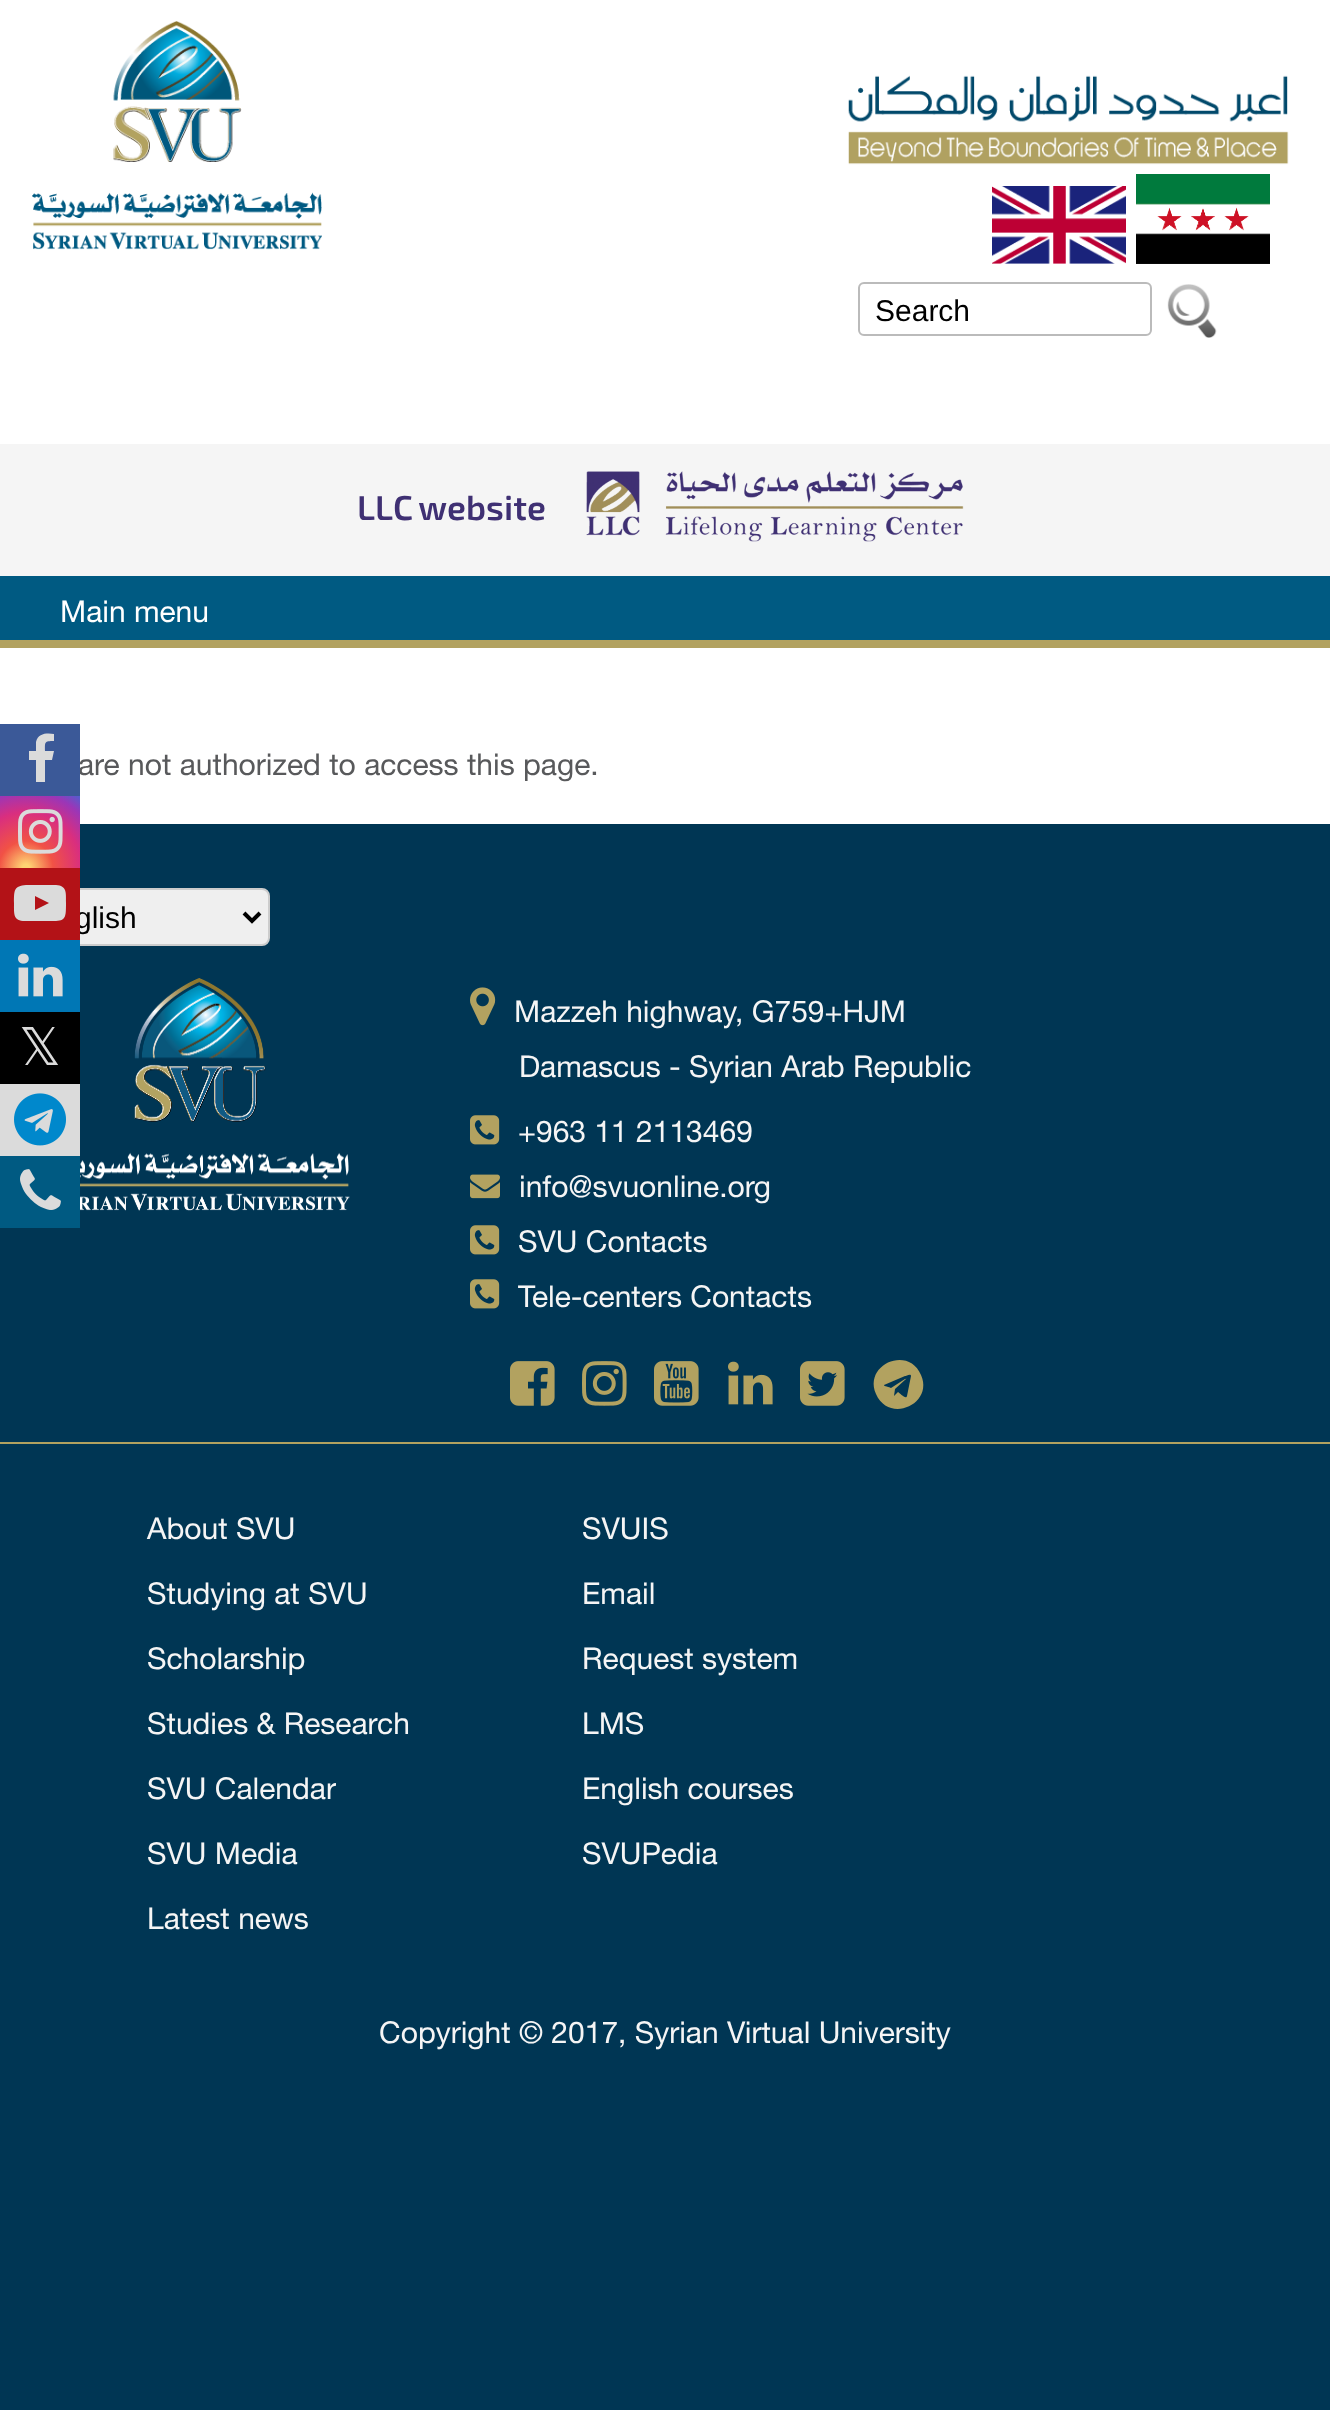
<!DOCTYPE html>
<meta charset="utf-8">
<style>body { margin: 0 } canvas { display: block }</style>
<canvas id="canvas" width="1330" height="2410"></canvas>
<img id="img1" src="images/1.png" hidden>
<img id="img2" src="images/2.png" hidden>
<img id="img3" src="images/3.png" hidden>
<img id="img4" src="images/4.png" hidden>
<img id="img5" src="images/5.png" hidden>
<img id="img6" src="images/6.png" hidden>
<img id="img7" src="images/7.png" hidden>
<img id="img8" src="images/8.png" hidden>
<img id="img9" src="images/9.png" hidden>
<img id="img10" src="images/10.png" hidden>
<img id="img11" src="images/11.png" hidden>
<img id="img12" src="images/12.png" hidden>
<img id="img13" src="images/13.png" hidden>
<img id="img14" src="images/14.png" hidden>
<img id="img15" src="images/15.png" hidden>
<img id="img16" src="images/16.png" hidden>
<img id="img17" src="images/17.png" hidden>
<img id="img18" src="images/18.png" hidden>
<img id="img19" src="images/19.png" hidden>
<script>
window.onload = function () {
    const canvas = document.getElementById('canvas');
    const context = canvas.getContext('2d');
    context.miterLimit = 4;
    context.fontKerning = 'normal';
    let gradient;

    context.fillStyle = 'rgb(0, 54, 84)';
    context.fillRect(0, 0, 1330, 2410);
    context.fillStyle = 'rgb(255, 255, 255)';
    context.fillRect(0, 0, 1330, 824);
    context.drawImage(document.getElementById('img1'), 32, 21, 290, 229);
    context.drawImage(document.getElementById('img2'), 848, 75, 441, 90);
    context.drawImage(document.getElementById('img3'), 992, 186, 134, 78);
    context.drawImage(document.getElementById('img4'), 1136, 174, 134, 90);
    context.beginPath();
    context.roundRect(859, 283, 292, 52, 5);
    context.strokeStyle = 'rgb(187, 187, 187)';
    context.lineWidth = 2;
    context.stroke();
    context.drawImage(document.getElementById('img5'), 1167, 284, 50, 54);
    context.fillStyle = 'rgb(245, 245, 245)';
    context.fillRect(0, 444, 1330, 132);
    context.drawImage(document.getElementById('img6'), 586, 471, 378, 71);
    context.fillStyle = 'rgb(0, 90, 130)';
    context.fillRect(0, 576, 1330, 64);
    context.fillStyle = 'rgb(178, 162, 96)';
    context.fillRect(0, 640, 1330, 8);
    gradient = context.createRadialGradient(26, 868, 0, 26, 868, 90);
    gradient.addColorStop(0.04, 'rgb(254, 211, 115)');
    gradient.addColorStop(0.3, 'rgb(241, 82, 69)');
    gradient.addColorStop(0.62, 'rgb(217, 46, 127)');
    gradient.addColorStop(0.85, 'rgb(155, 54, 183)');
    gradient.addColorStop(1, 'rgb(81, 94, 207)');
    context.fillStyle = gradient;
    context.fillRect(0, 796, 80, 72);
    context.drawImage(document.getElementById('img7'), 18, 809, 45, 45);
    context.fillStyle = 'rgb(239, 239, 239)';
    context.beginPath();
    context.roundRect(21, 889, 248, 56, 7);
    context.fill();
    context.strokeStyle = 'rgb(204, 204, 204)';
    context.stroke();
    context.fillStyle = 'rgb(0, 119, 181)';
    context.fillRect(0, 940, 80, 72);
    context.drawImage(document.getElementById('img8'), 18, 953, 45, 44);
    context.fillStyle = 'rgb(0, 0, 0)';
    context.fillRect(0, 1012, 80, 72);
    context.fillStyle = 'rgb(219, 219, 219)';
    context.fillRect(0, 1084, 80, 72);
    context.drawImage(document.getElementById('img9'), 14, 1093, 52, 53);
    context.fillStyle = 'rgb(0, 90, 130)';
    context.fillRect(0, 1156, 80, 72);
    context.drawImage(document.getElementById('img10'), 20, 1169, 41, 41);
    context.beginPath();
    context.moveTo(244, 913);
    context.lineTo(252, 921);
    context.lineTo(260, 913);
    context.strokeStyle = 'rgb(0, 0, 0)';
    context.lineWidth = 4;
    context.stroke();
    context.drawImage(document.getElementById('img11'), 80, 978, 270, 233);
    context.drawImage(document.getElementById('img12'), 470, 987, 26, 39);
    context.drawImage(document.getElementById('img13'), 470, 1115, 30, 30);
    context.drawImage(document.getElementById('img14'), 470, 1174, 30, 25);
    context.drawImage(document.getElementById('img13'), 470, 1225, 30, 30);
    context.drawImage(document.getElementById('img13'), 470, 1279, 30, 30);
    context.drawImage(document.getElementById('img15'), 510, 1361, 45, 45);
    context.drawImage(document.getElementById('img16'), 582, 1361, 45, 45);
    context.drawImage(document.getElementById('img17'), 654, 1361, 45, 45);
    context.drawImage(document.getElementById('img18'), 728, 1361, 45, 44);
    context.drawImage(document.getElementById('img19'), 800, 1361, 45, 45);
    context.fillStyle = 'rgb(178, 162, 96)';
    context.beginPath();
    context.moveTo(907, 1396);
    context.lineTo(911, 1376);
    context.bezierCurveTo(911, 1373, 906, 1376, 905, 1376);
    context.lineTo(884, 1385);
    context.bezierCurveTo(883, 1386, 890, 1387, 891, 1388);
    context.lineTo(905, 1379);
    context.bezierCurveTo(906, 1379, 907, 1378, 906, 1379);
    context.lineTo(895, 1389);
    context.lineTo(894, 1396);
    context.lineTo(898, 1392);
    context.bezierCurveTo(900, 1393, 906, 1400, 907, 1396);
    context.closePath();
    context.moveTo(921, 1375);
    context.bezierCurveTo(934, 1404, 889, 1424, 876, 1394);
    context.bezierCurveTo(863, 1364, 909, 1345, 921, 1375);
    context.closePath();
    context.fill();
    context.fillRect(0, 1442, 1330, 2);
    context.font = '30px Liberation Sans';
    context.fillStyle = 'rgb(0, 0, 0)';
    context.fillText('Search', 875, 321);
    context.font = '47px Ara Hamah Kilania';
    context.fillStyle = 'rgb(63, 48, 115)';
    context.fillText('LLC website', 357, 520);
    context.font = '30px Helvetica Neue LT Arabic';
    context.fillStyle = 'rgb(255, 255, 255)';
    context.fillText('Main menu', 60, 622);
    context.fillStyle = 'rgb(88, 89, 91)';
    context.fillText('are not authorized to access this page.', 78, 775);
    context.fillStyle = 'rgb(59, 89, 152)';
    context.fillRect(0, 724, 80, 72);
    context.fillStyle = 'rgb(219, 219, 219)';
    context.beginPath();
    context.moveTo(54, 734);
    context.lineTo(54, 741);
    context.bezierCurveTo(44, 741, 45, 742, 45, 751);
    context.lineTo(54, 751);
    context.lineTo(52, 760);
    context.lineTo(45, 760);
    context.lineTo(45, 782);
    context.lineTo(36, 782);
    context.lineTo(36, 760);
    context.lineTo(29, 760);
    context.lineTo(29, 751);
    context.lineTo(36, 751);
    context.lineTo(36, 742);
    context.bezierCurveTo(38, 733, 47, 733, 54, 734);
    context.closePath();
    context.fill();
    context.font = '52px DejaVu Sans';
    context.fillText('𝕏', 19, 1065);
    context.font = '30px Liberation Sans';
    context.fillStyle = 'rgb(0, 0, 0)';
    context.fillText('glish', 75, 928);
    context.fillStyle = 'rgb(179, 18, 23)';
    context.fillRect(0, 868, 80, 72);
    context.fillStyle = 'rgb(219, 219, 219)';
    context.beginPath();
    context.moveTo(35, 910);
    context.lineTo(49, 903);
    context.lineTo(35, 896);
    context.closePath();
    context.moveTo(40, 885);
    context.lineTo(56, 885);
    context.bezierCurveTo(67, 886, 66, 892, 66, 903);
    context.bezierCurveTo(66, 917, 66, 921, 54, 921);
    context.lineTo(25, 921);
    context.bezierCurveTo(13, 921, 14, 914, 14, 903);
    context.bezierCurveTo(14, 890, 14, 886, 26, 885);
    context.closePath();
    context.fill();
    context.font = '30px Helvetica Neue LT Arabic';
    context.fillStyle = 'rgb(245, 245, 245)';
    context.fillText('Mazzeh highway, G759+HJM', 514, 1022);
    context.fillText('Damascus - Syrian Arab Republic', 519, 1077);
    context.fillText('+963 11 2113469', 518, 1142);
    context.fillText('info@svuonline.org', 519, 1197);
    context.fillText('SVU Contacts', 518, 1252);
    context.fillText('Tele-centers Contacts', 518, 1307);
    context.fillText('About SVU', 147, 1539);
    context.fillText('Studying at SVU', 147, 1604);
    context.fillText('Scholarship', 147, 1669);
    context.fillText('Studies & Research', 147, 1734);
    context.fillText('SVU Calendar', 147, 1799);
    context.fillText('SVU Media', 147, 1864);
    context.fillText('Latest news', 147, 1929);
    context.fillText('SVUIS', 582, 1539);
    context.fillText('Email', 582, 1604);
    context.fillText('Request system', 582, 1669);
    context.fillText('LMS', 582, 1734);
    context.fillText('English courses', 582, 1799);
    context.fillText('SVUPedia', 582, 1864);
    context.fillText('Copyright © 2017, Syrian Virtual University', 379, 2043);
};
</script>
